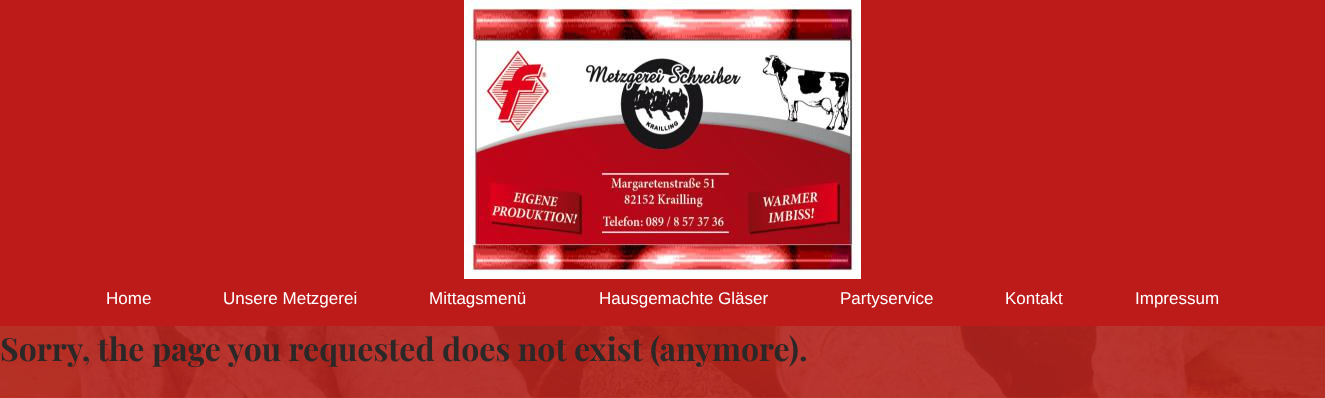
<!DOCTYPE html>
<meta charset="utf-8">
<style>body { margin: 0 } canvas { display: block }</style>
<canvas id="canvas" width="1325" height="398"></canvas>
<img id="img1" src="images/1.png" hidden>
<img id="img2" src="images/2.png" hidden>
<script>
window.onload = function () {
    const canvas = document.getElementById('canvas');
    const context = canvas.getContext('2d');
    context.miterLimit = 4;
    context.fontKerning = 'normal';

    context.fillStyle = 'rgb(255, 255, 255)';
    context.fillRect(0, 0, 1325, 398);
    context.drawImage(document.getElementById('img1'), 0, 326, 1325, 72);
    context.fillStyle = 'rgb(189, 26, 26)';
    context.fillRect(0, 0, 1325, 326);
    context.drawImage(document.getElementById('img2'), 464, 0, 397, 279);
    context.fillStyle = 'rgba(180, 36, 29, 0.9)';
    context.fillRect(0, 326, 1325, 72);
    context.font = '17px Liberation Sans';
    context.fillStyle = 'rgb(255, 255, 255)';
    context.fillText('Home', 106, 304);
    context.fillText('Unsere Metzgerei', 223, 304);
    context.fillText('Mittagsmenü', 429, 304);
    context.fillText('Hausgemachte Gläser', 599, 304);
    context.fillText('Partyservice', 840, 304);
    context.fillText('Kontakt', 1005, 304);
    context.fillText('Impressum', 1135, 304);
    context.font = 'bold 32px Playfair Display';
    context.fillStyle = 'rgb(45, 40, 40)';
    context.fillText('Sorry, the page you requested does not exist (anymore).', 0, 361);
};
</script>
